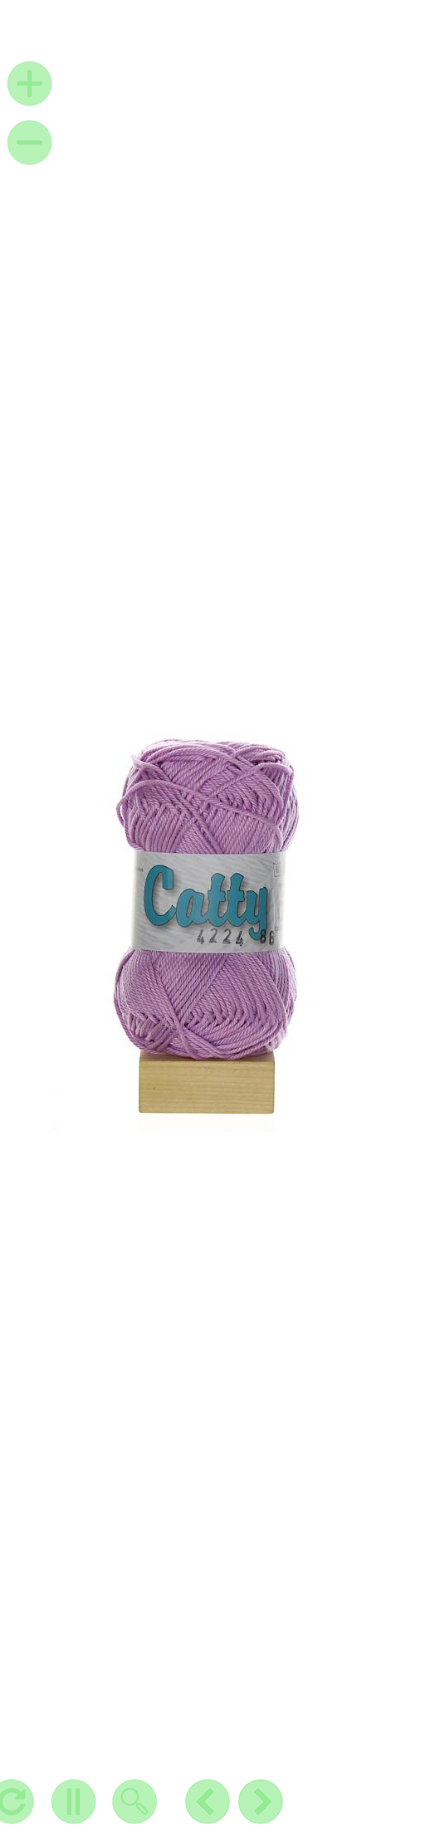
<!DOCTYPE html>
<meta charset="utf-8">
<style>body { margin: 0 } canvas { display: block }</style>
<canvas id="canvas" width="425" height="1836"></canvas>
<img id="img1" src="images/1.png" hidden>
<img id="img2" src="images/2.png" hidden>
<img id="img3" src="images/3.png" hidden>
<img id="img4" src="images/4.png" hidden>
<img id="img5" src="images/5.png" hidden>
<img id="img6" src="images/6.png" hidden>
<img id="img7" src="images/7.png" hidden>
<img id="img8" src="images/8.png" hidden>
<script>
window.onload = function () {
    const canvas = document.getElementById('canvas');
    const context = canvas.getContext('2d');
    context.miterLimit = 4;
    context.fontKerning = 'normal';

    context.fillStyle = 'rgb(255, 255, 255)';
    context.fillRect(0, 0, 425, 1836);
    context.drawImage(document.getElementById('img1'), 7, 61, 45, 45);
    context.drawImage(document.getElementById('img2'), 7, 120, 45, 45);
    context.drawImage(document.getElementById('img3'), 0, 1779, 34, 45);
    context.drawImage(document.getElementById('img4'), 51, 1779, 45, 45);
    context.drawImage(document.getElementById('img5'), 112, 1779, 45, 45);
    context.drawImage(document.getElementById('img6'), 185, 1779, 45, 45);
    context.drawImage(document.getElementById('img7'), 238, 1779, 45, 45);
    context.drawImage(document.getElementById('img8'), 54, 732, 251, 400);
};
</script>
